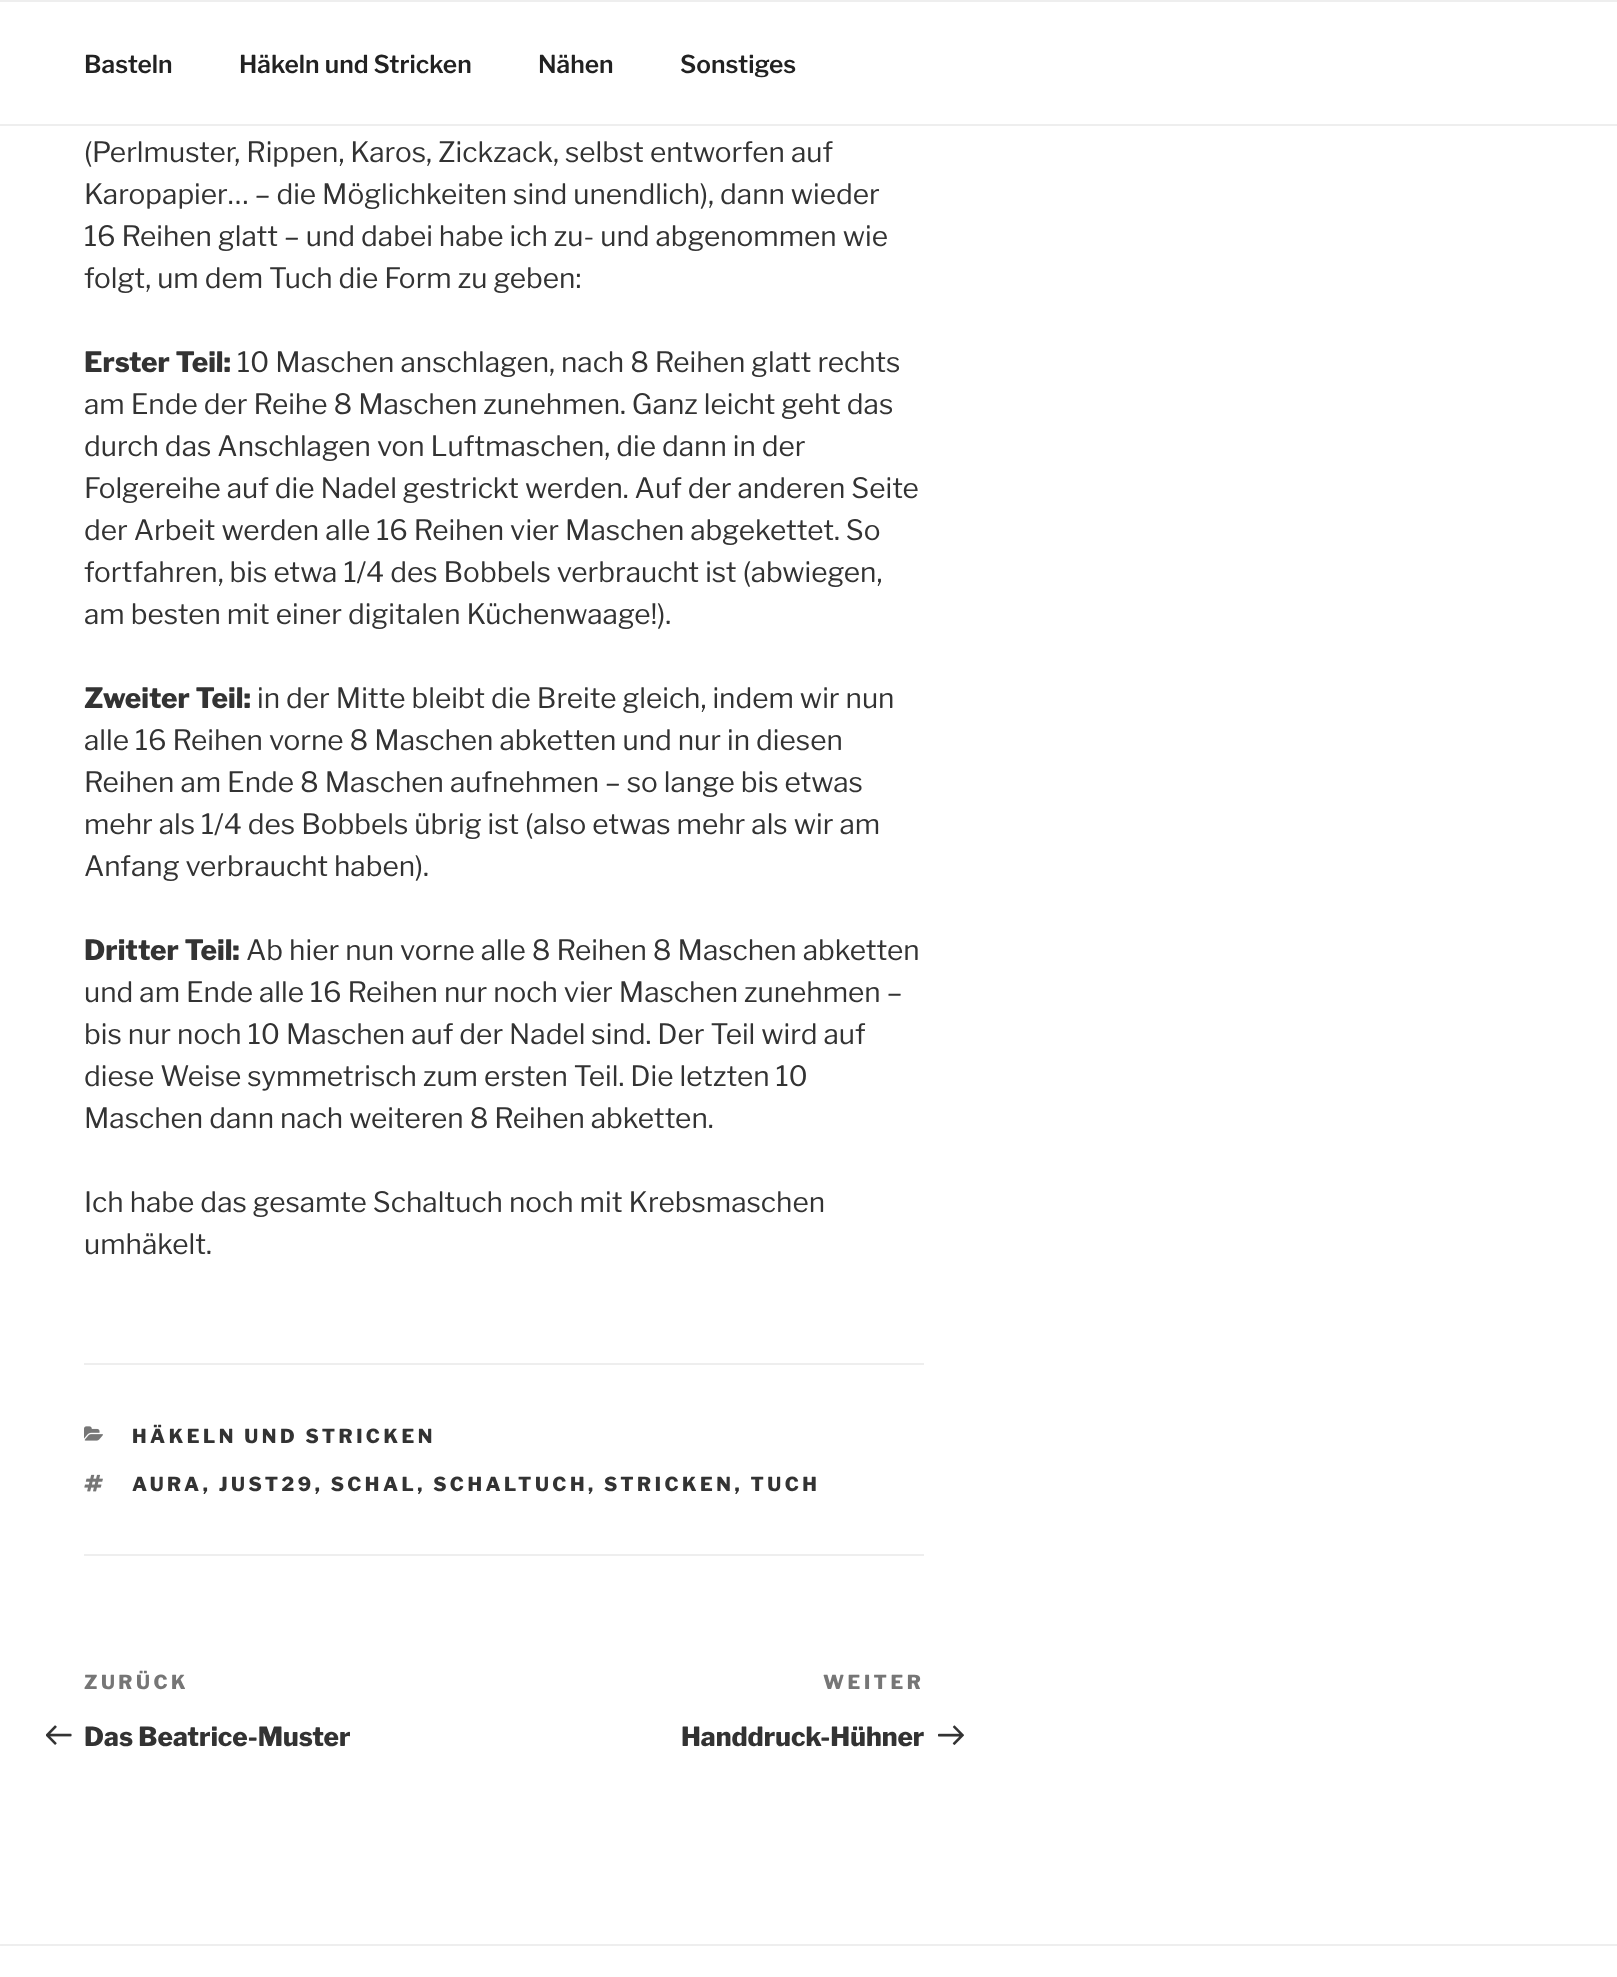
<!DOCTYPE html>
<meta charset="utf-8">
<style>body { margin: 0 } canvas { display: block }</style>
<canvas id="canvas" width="1617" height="1977"></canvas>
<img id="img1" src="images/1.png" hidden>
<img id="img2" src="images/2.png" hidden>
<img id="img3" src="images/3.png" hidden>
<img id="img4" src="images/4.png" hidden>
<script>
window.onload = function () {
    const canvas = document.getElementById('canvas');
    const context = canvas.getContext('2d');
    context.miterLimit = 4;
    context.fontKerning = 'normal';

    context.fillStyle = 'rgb(255, 255, 255)';
    context.fillRect(0, 0, 1617, 1977);
    context.fillStyle = 'rgb(238, 238, 238)';
    context.fillRect(0, 0, 1617, 2);
    context.fillRect(0, 124, 1617, 2);
    context.fillRect(84, 1363, 840, 2);
    context.fillRect(84, 1554, 840, 2);
    context.drawImage(document.getElementById('img1'), 84, 1426, 19, 15);
    context.drawImage(document.getElementById('img2'), 84, 1474, 19, 18);
    context.drawImage(document.getElementById('img3'), 46, 1725, 26, 20);
    context.drawImage(document.getElementById('img4'), 938, 1725, 26, 20);
    context.fillRect(0, 1944, 1617, 2);
    context.font = '100 24.5px "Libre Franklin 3"';
    context.fillStyle = 'rgb(34, 34, 34)';
    context.fillText('Basteln', 84, 73);
    context.fillText('Häkeln und Stricken', 239, 73);
    context.fillText('Nähen', 538, 73);
    context.fillText('Sonstiges', 680, 73);
    context.font = '100 28px "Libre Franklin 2"';
    context.fillStyle = 'rgb(51, 51, 51)';
    context.fillText('(Perlmuster, Rippen, Karos, Zickzack, selbst entworfen auf', 84, 162);
    context.fillText('Karopapier… – die Möglichkeiten sind unendlich), dann wieder', 84, 204);
    context.fillText('16 Reihen glatt – und dabei habe ich zu- und abgenommen wie', 84, 246);
    context.fillText('folgt, um dem Tuch die Form zu geben:', 84, 288);
    context.font = '100 28px Libre Franklin';
    context.fillText('Erster Teil:', 84, 372);
    context.font = '100 28px "Libre Franklin 2"';
    context.fillText('10 Maschen anschlagen, nach 8 Reihen glatt rechts', 237, 372);
    context.fillText('am Ende der Reihe 8 Maschen zunehmen. Ganz leicht geht das', 84, 414);
    context.fillText('durch das Anschlagen von Luftmaschen, die dann in der', 84, 456);
    context.fillText('Folgereihe auf die Nadel gestrickt werden. Auf der anderen Seite', 84, 498);
    context.fillText('der Arbeit werden alle 16 Reihen vier Maschen abgekettet. So', 84, 540);
    context.fillText('fortfahren, bis etwa 1/4 des Bobbels verbraucht ist (abwiegen,', 84, 582);
    context.fillText('am besten mit einer digitalen Küchenwaage!).', 84, 624);
    context.font = '100 28px Libre Franklin';
    context.fillText('Zweiter Teil:', 84, 708);
    context.font = '100 28px "Libre Franklin 2"';
    context.fillText('in der Mitte bleibt die Breite gleich, indem wir nun', 257, 708);
    context.fillText('alle 16 Reihen vorne 8 Maschen abketten und nur in diesen', 84, 750);
    context.fillText('Reihen am Ende 8 Maschen aufnehmen – so lange bis etwas', 84, 792);
    context.fillText('mehr als 1/4 des Bobbels übrig ist (also etwas mehr als wir am', 84, 834);
    context.fillText('Anfang verbraucht haben).', 84, 876);
    context.font = '100 28px Libre Franklin';
    context.fillText('Dritter Teil:', 84, 960);
    context.font = '100 28px "Libre Franklin 2"';
    context.fillText('Ab hier nun vorne alle 8 Reihen 8 Maschen abketten', 246, 960);
    context.fillText('und am Ende alle 16 Reihen nur noch vier Maschen zunehmen –', 84, 1002);
    context.fillText('bis nur noch 10 Maschen auf der Nadel sind. Der Teil wird auf', 84, 1044);
    context.fillText('diese Weise symmetrisch zum ersten Teil. Die letzten 10', 84, 1086);
    context.fillText('Maschen dann nach weiteren 8 Reihen abketten.', 84, 1128);
    context.fillText('Ich habe das gesamte Schaltuch noch mit Krebsmaschen', 84, 1212);
    context.fillText('umhäkelt.', 84, 1254);
    context.letterSpacing = '3.5px';
    context.font = '100 19.25px Libre Franklin';
    context.fillText('HÄKELN UND STRICKEN', 132, 1443);
    context.fillText('AURA, JUST29, SCHAL, SCHALTUCH, STRICKEN, TUCH', 132, 1491);
    context.fillStyle = 'rgb(118, 118, 118)';
    context.fillText('ZURÜCK', 84, 1689);
    context.letterSpacing = '0px';
    context.font = '100 26.25px Libre Franklin';
    context.fillStyle = 'rgb(51, 51, 51)';
    context.fillText('Das Beatrice-Muster', 84, 1746);
    context.letterSpacing = '3.5px';
    context.font = '100 19.25px Libre Franklin';
    context.fillStyle = 'rgb(118, 118, 118)';
    context.fillText('WEITER', 823, 1689);
    context.letterSpacing = '0px';
    context.font = '100 26.25px Libre Franklin';
    context.fillStyle = 'rgb(51, 51, 51)';
    context.fillText('Handdruck-Hühner', 681, 1746);
};
</script>
